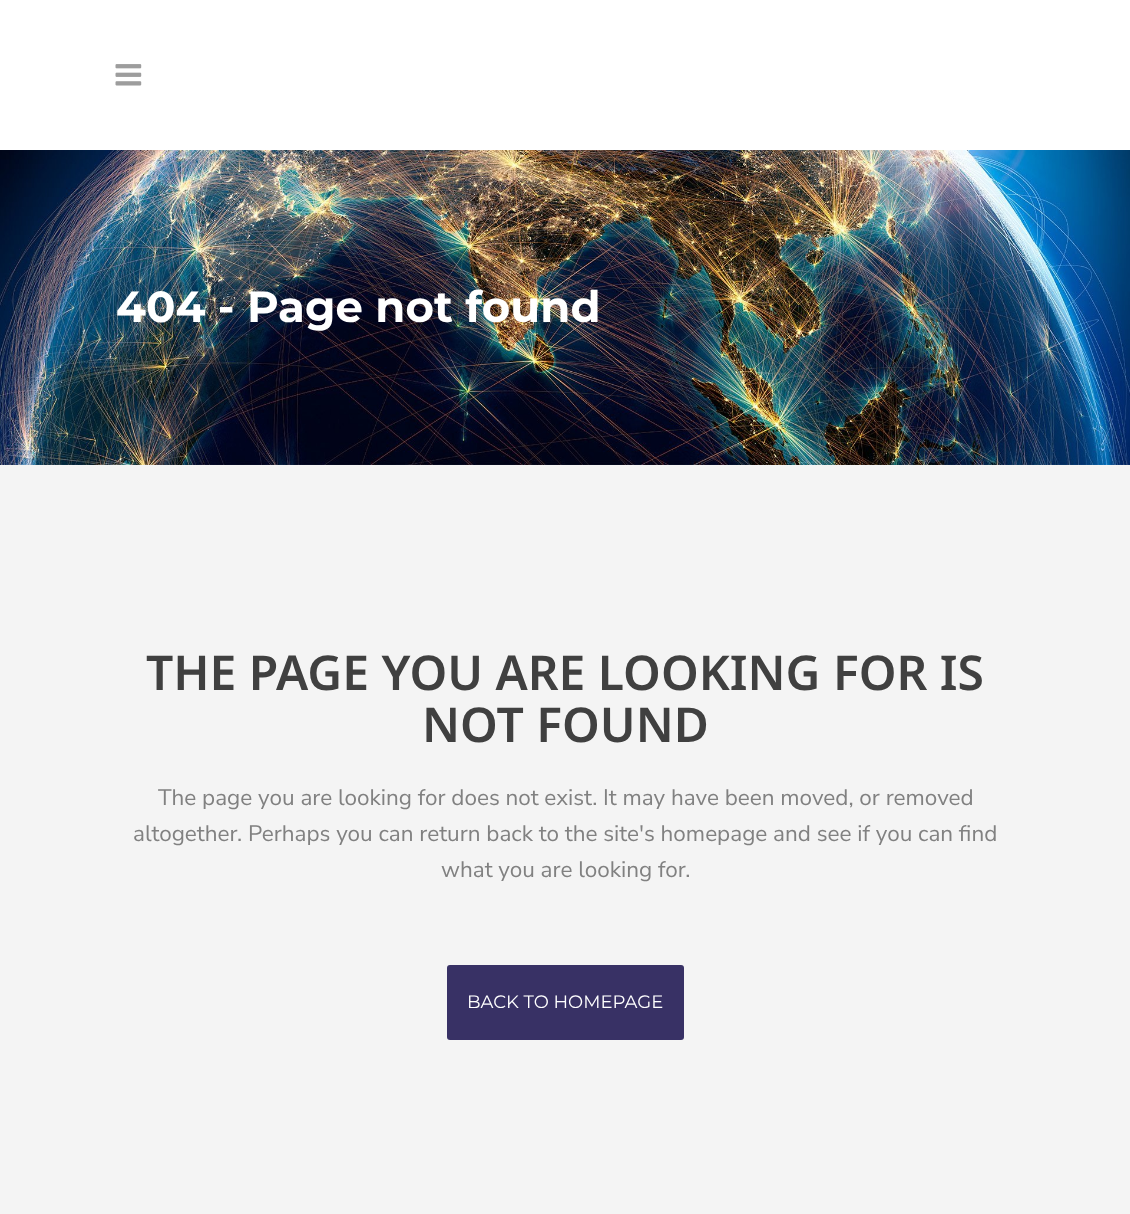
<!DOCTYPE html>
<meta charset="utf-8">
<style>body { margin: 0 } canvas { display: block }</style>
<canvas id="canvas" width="1130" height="1214"></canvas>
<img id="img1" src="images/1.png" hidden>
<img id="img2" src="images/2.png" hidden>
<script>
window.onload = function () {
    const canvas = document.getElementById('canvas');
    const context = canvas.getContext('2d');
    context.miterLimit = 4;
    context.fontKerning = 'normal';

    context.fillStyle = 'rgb(244, 244, 244)';
    context.fillRect(0, 0, 1130, 1214);
    context.fillStyle = 'rgb(255, 255, 255)';
    context.fillRect(0, 0, 1130, 150);
    context.drawImage(document.getElementById('img1'), 115, 64, 27, 22);
    context.drawImage(document.getElementById('img2'), 0, 150, 1130, 315);
    context.fillStyle = 'rgb(56, 49, 101)';
    context.beginPath();
    context.roundRect(447, 965, 237, 75, 3);
    context.fill();
    context.font = 'bold 43.5px Montserrat';
    context.fillStyle = 'rgb(255, 255, 255)';
    context.fillText('404 - Page not found', 116, 322);
    context.font = '600 48px Noto Sans';
    context.fillStyle = 'rgb(64, 64, 64)';
    context.fillText('THE PAGE YOU ARE LOOKING FOR IS', 146, 690);
    context.fillText('NOT FOUND', 422, 742);
    context.font = '22.5px Nunito Sans';
    context.fillStyle = 'rgb(129, 129, 129)';
    context.fillText('The page you are looking for does not exist. It may have been moved, or removed', 158, 805);
    context.fillText('altogether. Perhaps you can return back to the site\'s homepage and see if you can find', 133, 841);
    context.fillText('what you are looking for.', 441, 877);
    context.font = '18px Montserrat';
    context.fillStyle = 'rgb(255, 255, 255)';
    context.fillText('BACK TO HOMEPAGE', 467, 1008);
};
</script>
